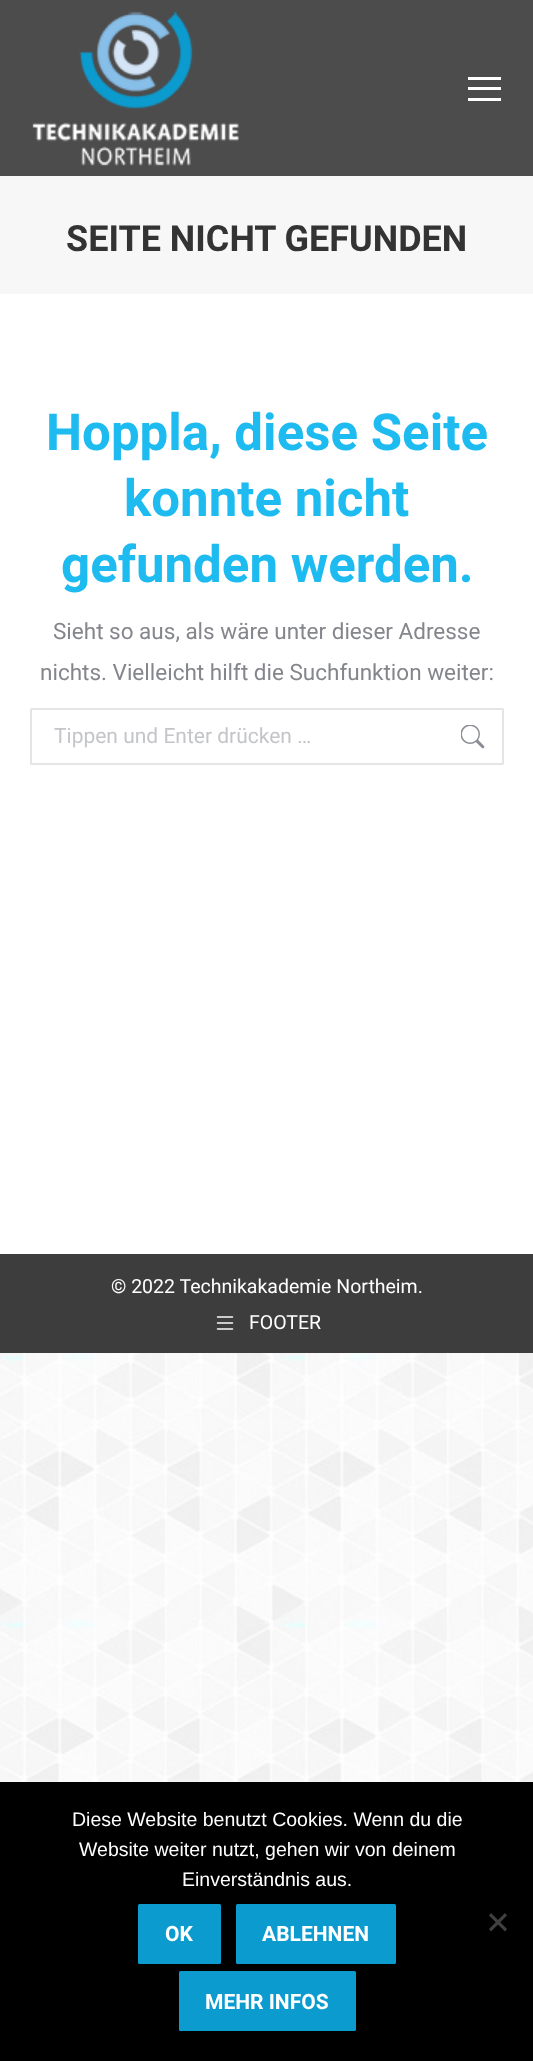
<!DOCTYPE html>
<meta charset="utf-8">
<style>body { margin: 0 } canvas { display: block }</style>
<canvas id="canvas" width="533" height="2061"></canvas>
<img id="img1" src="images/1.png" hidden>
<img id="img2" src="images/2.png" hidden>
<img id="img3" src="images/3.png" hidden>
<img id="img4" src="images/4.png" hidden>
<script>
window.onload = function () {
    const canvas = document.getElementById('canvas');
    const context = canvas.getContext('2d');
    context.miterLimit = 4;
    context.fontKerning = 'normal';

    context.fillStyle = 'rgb(255, 255, 255)';
    context.fillRect(0, 0, 533, 2061);
    context.drawImage(document.getElementById('img1'), 0, 1353, 533, 429);
    context.fillStyle = 'rgba(0, 0, 0, 0.7)';
    context.fillRect(0, 0, 533, 176);
    context.drawImage(document.getElementById('img2'), 32, 11, 207, 155);
    context.fillStyle = 'rgb(255, 255, 255)';
    context.fillRect(468, 77, 33, 3);
    context.fillRect(468, 87, 33, 3);
    context.fillRect(468, 98, 33, 3);
    context.fillStyle = 'rgb(247, 247, 247)';
    context.fillRect(0, 176, 533, 118);
    context.beginPath();
    context.roundRect(31, 709, 472, 55, 0.5);
    context.strokeStyle = 'rgb(229, 229, 229)';
    context.lineWidth = 2;
    context.stroke();
    context.drawImage(document.getElementById('img3'), 461, 725, 24, 24);
    context.fillStyle = 'rgb(61, 61, 61)';
    context.fillRect(0, 1254, 533, 99);
    context.fillStyle = 'rgb(65, 65, 65)';
    context.fillRect(16, 1345, 1, 1);
    context.drawImage(document.getElementById('img4'), 216, 1316, 18, 14);
    context.fillStyle = 'rgb(0, 0, 0)';
    context.fillRect(0, 1782, 533, 279);
    context.fillStyle = 'rgb(64, 64, 64)';
    context.beginPath();
    context.moveTo(505, 1913);
    context.lineTo(507, 1915.5);
    context.lineTo(491, 1931.5);
    context.lineTo(489, 1929);
    context.closePath();
    context.fill();
    context.beginPath();
    context.moveTo(489, 1915.5);
    context.lineTo(491, 1913);
    context.lineTo(507, 1929);
    context.lineTo(505, 1931.5);
    context.closePath();
    context.fill();
    context.fillStyle = 'rgb(12, 155, 206)';
    context.beginPath();
    context.roundRect(138, 1904, 83, 60, 1.5);
    context.fill();
    context.beginPath();
    context.roundRect(236, 1904, 160, 60, 1.5);
    context.fill();
    context.beginPath();
    context.roundRect(179, 1971, 177, 60, 1.5);
    context.fill();
    context.font = 'bold 36px Roboto';
    context.fillStyle = 'rgb(51, 51, 51)';
    context.fillText('SEITE NICHT GEFUNDEN', 66, 251);
    context.font = 'bold 51px Roboto';
    context.fillStyle = 'rgb(30, 187, 240)';
    context.fillText('Hoppla, diese Seite', 46, 450);
    context.fillText('konnte nicht', 124, 516);
    context.fillText('gefunden werden.', 61, 582);
    context.font = '22.5px Roboto';
    context.fillStyle = 'rgb(133, 134, 140)';
    context.fillText('Sieht so aus, als wäre unter dieser Adresse', 53, 639);
    context.fillText('nichts. Vielleicht hilft die Suchfunktion weiter:', 40, 680);
    context.font = '21px Roboto';
    context.fillStyle = 'rgb(196, 197, 201)';
    context.fillText('Tippen und Enter drücken …', 54, 743);
    context.font = '19.5px Roboto';
    context.fillStyle = 'rgb(255, 255, 255)';
    context.fillText('© 2022 Technikakademie Northeim.', 111, 1293);
    context.fillText('FOOTER', 249, 1329);
    context.font = '19.5px Liberation Sans';
    context.fillText('Diese Website benutzt Cookies. Wenn du die', 72, 1826);
    context.fillText('Website weiter nutzt, gehen wir von deinem', 79, 1856);
    context.fillText('Einverständnis aus.', 182, 1886);
    context.font = 'bold 21px Roboto';
    context.fillText('OK', 165, 1941);
    context.fillText('ABLEHNEN', 262, 1941);
    context.fillText('MEHR INFOS', 205, 2009);
};
</script>
